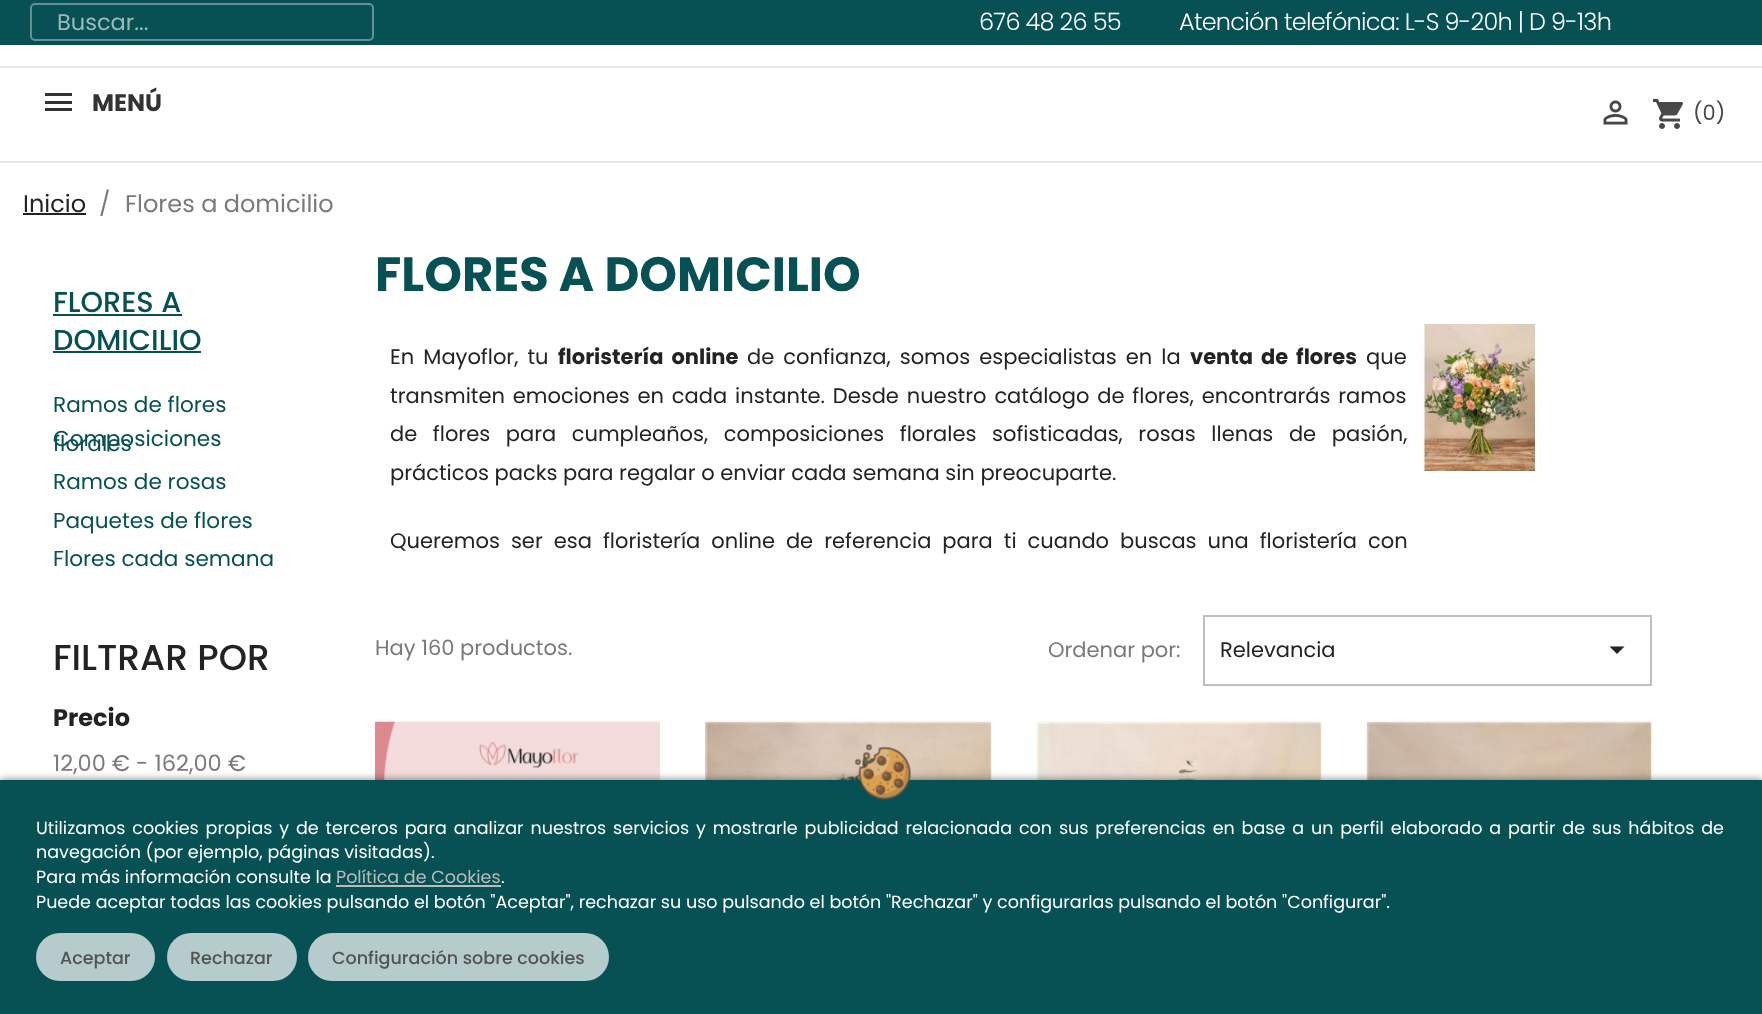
<!DOCTYPE html>
<meta charset="utf-8">
<style>body { margin: 0 } canvas { display: block }</style>
<canvas id="canvas" width="1762" height="1014"></canvas>
<img id="img1" src="images/1.png" hidden>
<img id="img2" src="images/2.png" hidden>
<img id="img3" src="images/3.png" hidden>
<img id="img4" src="images/4.png" hidden>
<img id="img5" src="images/5.png" hidden>
<img id="img6" src="images/6.png" hidden>
<img id="img7" src="images/7.png" hidden>
<img id="img8" src="images/8.png" hidden>
<script>
window.onload = function () {
    const canvas = document.getElementById('canvas');
    const context = canvas.getContext('2d');
    context.miterLimit = 4;
    context.fontKerning = 'normal';

    context.fillStyle = 'rgb(255, 255, 255)';
    context.fillRect(0, 0, 1762, 1014);
    context.fillStyle = 'rgb(7, 81, 85)';
    context.fillRect(0, 0, 1762, 45);
    context.beginPath();
    context.roundRect(31, 4, 342, 36, 4);
    context.strokeStyle = 'rgb(99, 145, 148)';
    context.lineWidth = 2;
    context.stroke();
    context.fillStyle = 'rgb(231, 231, 231)';
    context.fillRect(0, 66, 1762, 2);
    context.fillRect(0, 161, 1762, 2);
    context.fillStyle = 'rgb(51, 51, 51)';
    context.fillRect(45, 93, 27, 3);
    context.fillRect(45, 101, 27, 3);
    context.fillRect(45, 108, 27, 3);
    context.drawImage(document.getElementById('img1'), 1603, 100, 25, 25);
    context.drawImage(document.getElementById('img2'), 1652, 99, 31, 30);
    context.fillStyle = 'rgb(35, 35, 35)';
    context.fillRect(23, 213, 63, 2);
    context.fillStyle = 'rgb(7, 81, 85)';
    context.fillRect(53, 314, 129, 2);
    context.fillRect(53, 351, 148, 2);
    context.drawImage(document.getElementById('img3'), 1422, 324, 116, 147);
    context.strokeStyle = 'rgb(191, 191, 191)';
    context.strokeRect(1204, 616, 447, 69);
    context.fillStyle = 'rgb(35, 35, 35)';
    context.beginPath();
    context.moveTo(1609.5, 646.5);
    context.lineTo(1624.5, 646.5);
    context.lineTo(1617, 654);
    context.closePath();
    context.fill();
    context.drawImage(document.getElementById('img4'), 375, 721, 285, 59);
    context.drawImage(document.getElementById('img5'), 705, 721, 287, 59);
    context.drawImage(document.getElementById('img6'), 1036, 721, 286, 59);
    context.drawImage(document.getElementById('img7'), 1366, 721, 286, 59);
    context.fillStyle = 'rgba(0, 0, 0, 0.5)';
    context.filter = 'blur(4px)';
    context.beginPath();
    context.rect(0, 780, 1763, 234);
    context.fill();
    context.filter = 'none';
    context.fillStyle = 'rgb(7, 81, 85)';
    context.fillRect(0, 780, 1762, 234);
    context.drawImage(document.getElementById('img8'), 854, 744, 57, 56);
    context.fillStyle = 'rgb(187, 187, 187)';
    context.fillRect(336, 885, 165, 2);
    context.fillStyle = 'rgb(181, 203, 204)';
    context.beginPath();
    context.roundRect(36, 933, 119, 48, 24);
    context.fill();
    context.beginPath();
    context.roundRect(167, 933, 130, 48, 24);
    context.fill();
    context.beginPath();
    context.roundRect(308, 933, 301, 48, 24);
    context.fill();
    context.font = '22.5px Poppins';
    context.fillStyle = 'rgb(156, 185, 187)';
    context.fillText('Buscar...', 57, 30);
    context.letterSpacing = '-0.75px';
    context.font = '300 24px Poppins';
    context.fillStyle = 'rgb(255, 255, 255)';
    context.fillText('676 48 26 55', 979, 30);
    context.fillText('Atención telefónica: L-S 9-20h | D 9-13h', 1179, 30);
    context.letterSpacing = '0px';
    context.font = 'bold 24px Poppins';
    context.fillStyle = 'rgb(51, 51, 51)';
    context.fillText('MENÚ', 92, 111);
    context.font = '21px Poppins';
    context.fillStyle = 'rgb(72, 72, 72)';
    context.fillText('(0)', 1693, 120);
    context.font = '24px Poppins';
    context.fillStyle = 'rgb(35, 35, 35)';
    context.fillText('Inicio', 23, 212);
    context.fillStyle = 'rgb(122, 122, 122)';
    context.fillText('/', 99, 212);
    context.fillText('Flores a domicilio', 125, 212);
    context.font = '500 28.75px Poppins';
    context.fillStyle = 'rgb(7, 81, 85)';
    context.fillText('FLORES A', 53, 312);
    context.fillText('DOMICILIO', 53, 350);
    context.font = '21.6px Poppins';
    context.fillText('Ramos de flores', 53, 412);
    context.fillText('Composiciones', 53, 446);
    context.fillText('florales', 53, 451);
    context.fillText('Ramos de rosas', 53, 489);
    context.fillText('Paquetes de flores', 53, 528);
    context.fillText('Flores cada semana', 53, 566);
    context.font = '500 36px Poppins';
    context.fillStyle = 'rgb(35, 35, 35)';
    context.fillText('FILTRAR POR', 53, 670);
    context.font = 'bold 24px Poppins';
    context.fillText('Precio', 53, 726);
    context.font = '22.5px Poppins';
    context.fillStyle = 'rgb(122, 122, 122)';
    context.fillText('12,00 € - 162,00 €', 53, 771);
    context.font = 'bold 48px Poppins';
    context.fillStyle = 'rgb(7, 81, 85)';
    context.fillText('FLORES A DOMICILIO', 375, 291);
    context.wordSpacing = '3.5px';
    context.font = '21px Poppins';
    context.fillStyle = 'rgb(35, 35, 35)';
    context.fillText('En Mayoflor, tu', 390, 364);
    context.font = 'bold 21px Poppins';
    context.fillText('floristería online', 558, 364);
    context.font = '21px Poppins';
    context.fillText('de confianza, somos especialistas en la', 747, 364);
    context.font = 'bold 21px Poppins';
    context.fillText('venta de flores', 1190, 364);
    context.wordSpacing = '0px';
    context.font = '21px Poppins';
    context.fillText('que', 1366, 364);
    context.wordSpacing = '2.25px';
    context.fillText('transmiten emociones en cada instante. Desde nuestro catálogo de flores, encontrarás ramos', 390, 403);
    context.wordSpacing = '10px';
    context.fillText('de flores para cumpleaños, composiciones florales sofisticadas, rosas llenas de pasión,', 390, 441);
    context.wordSpacing = '0px';
    context.fillText('prácticos packs para regalar o enviar cada semana sin preocuparte.', 390, 480);
    context.wordSpacing = '5.4px';
    context.fillText('Queremos ser esa floristería online de referencia para ti cuando buscas una floristería con', 390, 548);
    context.wordSpacing = '0px';
    context.fillStyle = 'rgb(122, 122, 122)';
    context.fillText('Hay 160 productos.', 375, 655);
    context.fillText('Ordenar por:', 1048, 657);
    context.fillStyle = 'rgb(35, 35, 35)';
    context.fillText('Relevancia', 1220, 657);
    context.wordSpacing = '2.2px';
    context.font = '17.55px Poppins';
    context.fillStyle = 'rgb(255, 255, 255)';
    context.fillText('Utilizamos cookies propias y de terceros para analizar nuestros servicios y mostrarle publicidad relacionada con sus preferencias en base a un perfil elaborado a partir de sus hábitos de', 36, 834);
    context.wordSpacing = '0px';
    context.fillText('navegación (por ejemplo, páginas visitadas).', 36, 858);
    context.fillText('Para más información consulte la', 36, 883);
    context.fillStyle = 'rgb(187, 187, 187)';
    context.fillText('Política de Cookies', 336, 883);
    context.fillStyle = 'rgb(255, 255, 255)';
    context.fillText('.', 501, 883);
    context.fillText('Puede aceptar todas las cookies pulsando el botón "Aceptar", rechazar su uso pulsando el botón "Rechazar" y configurarlas pulsando el botón "Configurar".', 36, 908);
    context.font = '500 17.55px Poppins';
    context.fillStyle = 'rgb(83, 83, 83)';
    context.fillText('Aceptar', 60, 964);
    context.fillText('Rechazar', 190, 964);
    context.fillText('Configuración sobre cookies', 332, 964);
};
</script>
